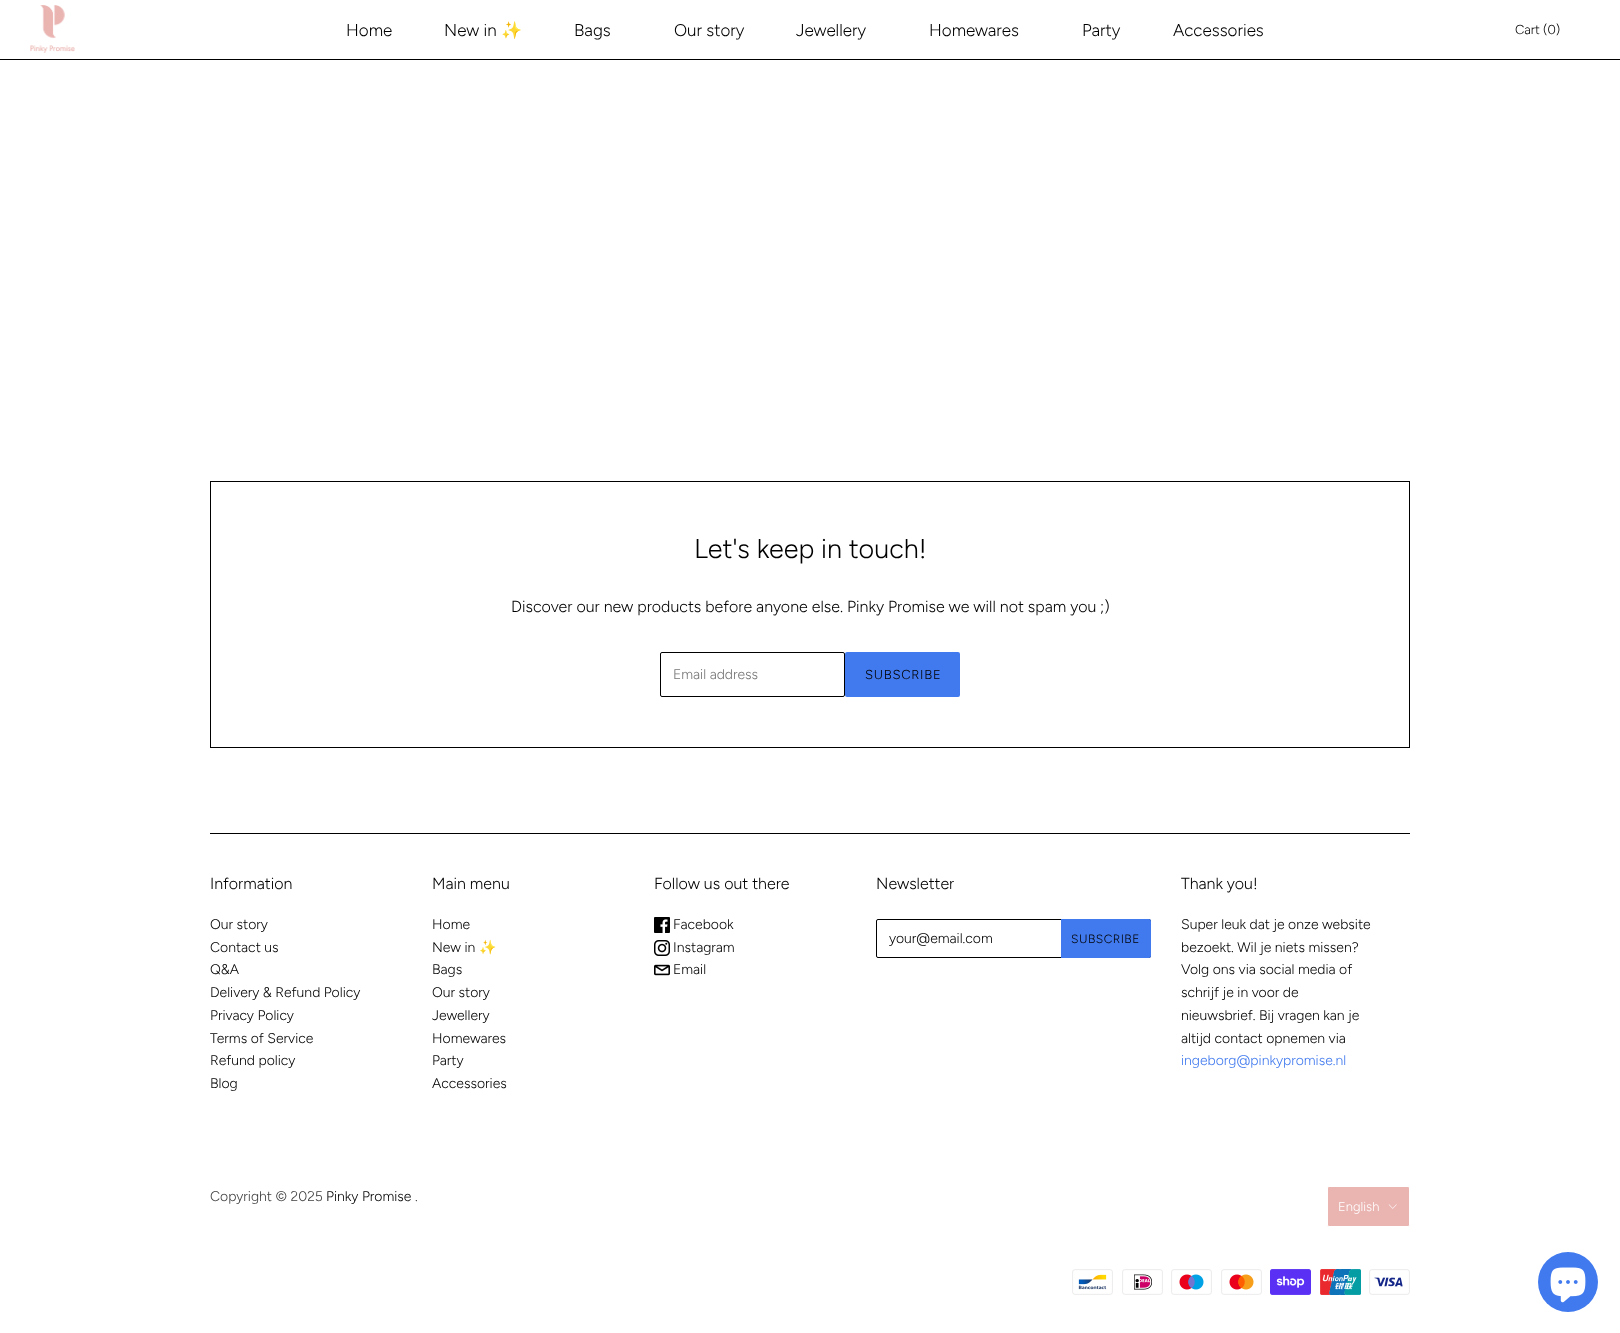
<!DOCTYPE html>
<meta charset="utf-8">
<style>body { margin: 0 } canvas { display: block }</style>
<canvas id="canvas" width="1620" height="1333"></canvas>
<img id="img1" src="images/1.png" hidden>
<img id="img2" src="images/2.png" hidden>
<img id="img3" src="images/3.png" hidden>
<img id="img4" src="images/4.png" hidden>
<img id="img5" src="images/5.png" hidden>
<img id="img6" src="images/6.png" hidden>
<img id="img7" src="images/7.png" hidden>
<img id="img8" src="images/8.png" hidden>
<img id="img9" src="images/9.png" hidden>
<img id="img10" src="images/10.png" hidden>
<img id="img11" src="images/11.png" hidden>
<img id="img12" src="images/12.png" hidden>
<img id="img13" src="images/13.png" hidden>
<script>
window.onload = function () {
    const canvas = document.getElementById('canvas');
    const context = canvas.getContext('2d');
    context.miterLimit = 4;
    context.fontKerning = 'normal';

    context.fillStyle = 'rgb(255, 255, 255)';
    context.fillRect(0, 0, 1620, 1333);
    context.fillStyle = 'rgb(0, 0, 0)';
    context.fillRect(0, 59, 1620, 1);
    context.drawImage(document.getElementById('img1'), 30, 5, 45, 48);
    context.strokeStyle = 'rgb(0, 0, 0)';
    context.strokeRect(210.5, 481.5, 1199, 266);
    context.beginPath();
    context.roundRect(660.5, 652.5, 184, 44, 1.5);
    context.stroke();
    context.fillStyle = 'rgb(65, 122, 238)';
    context.beginPath();
    context.roundRect(845, 652, 115, 45, 2);
    context.fill();
    context.fillStyle = 'rgb(0, 0, 0)';
    context.fillRect(210, 833, 1200, 1);
    context.drawImage(document.getElementById('img2'), 654, 917, 16, 16);
    context.drawImage(document.getElementById('img3'), 654, 940, 16, 16);
    context.drawImage(document.getElementById('img4'), 654, 964, 16, 12);
    context.beginPath();
    context.roundRect(876.5, 919.5, 274, 38, 1.5);
    context.stroke();
    context.fillStyle = 'rgb(65, 122, 238)';
    context.beginPath();
    context.roundRect(1061, 919, 90, 39, [0, 2, 2, 0]);
    context.fill();
    context.fillStyle = 'rgb(234, 180, 177)';
    context.beginPath();
    context.roundRect(1327.5, 1186.5, 82, 40, 1.5);
    context.fill();
    context.strokeStyle = 'rgb(255, 255, 255)';
    context.stroke();
    context.drawImage(document.getElementById('img5'), 1388, 1204, 9, 5);
    context.drawImage(document.getElementById('img6'), 1072, 1269, 41, 26);
    context.drawImage(document.getElementById('img7'), 1122, 1269, 41, 26);
    context.drawImage(document.getElementById('img8'), 1171, 1269, 41, 26);
    context.drawImage(document.getElementById('img9'), 1221, 1269, 41, 26);
    context.drawImage(document.getElementById('img10'), 1270, 1269, 41, 26);
    context.drawImage(document.getElementById('img11'), 1320, 1269, 41, 26);
    context.drawImage(document.getElementById('img12'), 1369, 1269, 41, 26);
    context.fillStyle = 'rgb(65, 122, 238)';
    context.beginPath();
    context.arc(1568, 1282, 30, 0, 2 * Math.PI);
    context.fill();
    context.drawImage(document.getElementById('img13'), 1550, 1267, 36, 36);
    context.font = '300 17px Figtree';
    context.fillStyle = 'rgb(0, 0, 0)';
    context.fillText('Home', 346, 36);
    context.fillText('New in', 444, 36);
    context.font = '17px Noto Color Emoji';
    context.fillText('✨', 501, 36);
    context.font = '300 17px Figtree';
    context.fillText('Bags', 574, 36);
    context.fillText('Our story', 674, 36);
    context.fillText('Jewellery', 796, 36);
    context.fillText('Homewares', 929, 36);
    context.fillText('Party', 1082, 36);
    context.fillText('Accessories', 1173, 36);
    context.font = '300 13px Figtree';
    context.fillText('Cart (0)', 1515, 34);
    context.font = '300 27px Figtree';
    context.fillText('Let\'s keep in touch!', 694, 558);
    context.font = '300 16px Figtree';
    context.fillText('Discover our new products before anyone else. Pinky Promise we will not spam you ;)', 511, 612);
    context.font = '300 14px Figtree';
    context.fillStyle = 'rgb(117, 117, 117)';
    context.fillText('Email address', 673, 679);
    context.letterSpacing = '0.75px';
    context.font = '300 13px Figtree';
    context.fillStyle = 'rgb(0, 0, 0)';
    context.fillText('SUBSCRIBE', 865, 679);
    context.letterSpacing = '0px';
    context.font = '300 16px Figtree';
    context.fillText('Information', 210, 889);
    context.font = '300 14px Figtree';
    context.fillText('Our story', 210, 929);
    context.fillText('Contact us', 210, 952);
    context.fillText('Q&A', 210, 974);
    context.fillText('Delivery & Refund Policy', 210, 997);
    context.fillText('Privacy Policy', 210, 1020);
    context.fillText('Terms of Service', 210, 1043);
    context.fillText('Refund policy', 210, 1065);
    context.fillText('Blog', 210, 1088);
    context.font = '300 16px Figtree';
    context.fillText('Main menu', 432, 889);
    context.font = '300 14px Figtree';
    context.fillText('Home', 432, 929);
    context.fillText('New in', 432, 952);
    context.font = '14px Noto Color Emoji';
    context.fillText('✨', 479, 952);
    context.font = '300 14px Figtree';
    context.fillText('Bags', 432, 974);
    context.fillText('Our story', 432, 997);
    context.fillText('Jewellery', 432, 1020);
    context.fillText('Homewares', 432, 1043);
    context.fillText('Party', 432, 1065);
    context.fillText('Accessories', 432, 1088);
    context.font = '300 16px Figtree';
    context.fillText('Follow us out there', 654, 889);
    context.font = '300 14px Figtree';
    context.fillText('Facebook', 673, 929);
    context.fillText('Instagram', 673, 952);
    context.fillText('Email', 673, 974);
    context.font = '300 16px Figtree';
    context.fillText('Newsletter', 876, 889);
    context.font = '300 14px Figtree';
    context.fillText('your@email.com', 889, 943);
    context.letterSpacing = '0.5px';
    context.font = '300 12px Figtree';
    context.fillText('SUBSCRIBE', 1071, 943);
    context.letterSpacing = '0px';
    context.font = '300 16px Figtree';
    context.fillText('Thank you!', 1181, 889);
    context.font = '300 14px Figtree';
    context.fillText('Super leuk dat je onze website', 1181, 929);
    context.fillText('bezoekt. Wil je niets missen?', 1181, 952);
    context.fillText('Volg ons via social media of', 1181, 974);
    context.fillText('schrijf je in voor de', 1181, 997);
    context.fillText('nieuwsbrief. Bij vragen kan je', 1181, 1020);
    context.fillText('altijd contact opnemen via', 1181, 1043);
    context.fillStyle = 'rgb(65, 122, 238)';
    context.fillText('ingeborg@pinkypromise.nl', 1181, 1065);
    context.fillStyle = 'rgb(64, 64, 64)';
    context.fillText('Copyright © 2025', 210, 1201);
    context.fillStyle = 'rgb(0, 0, 0)';
    context.fillText('Pinky Promise', 326, 1201);
    context.fillStyle = 'rgb(64, 64, 64)';
    context.fillText('.', 415, 1201);
    context.font = '300 13px Figtree';
    context.fillStyle = 'rgb(255, 255, 255)';
    context.fillText('English', 1338, 1211);
};
</script>
